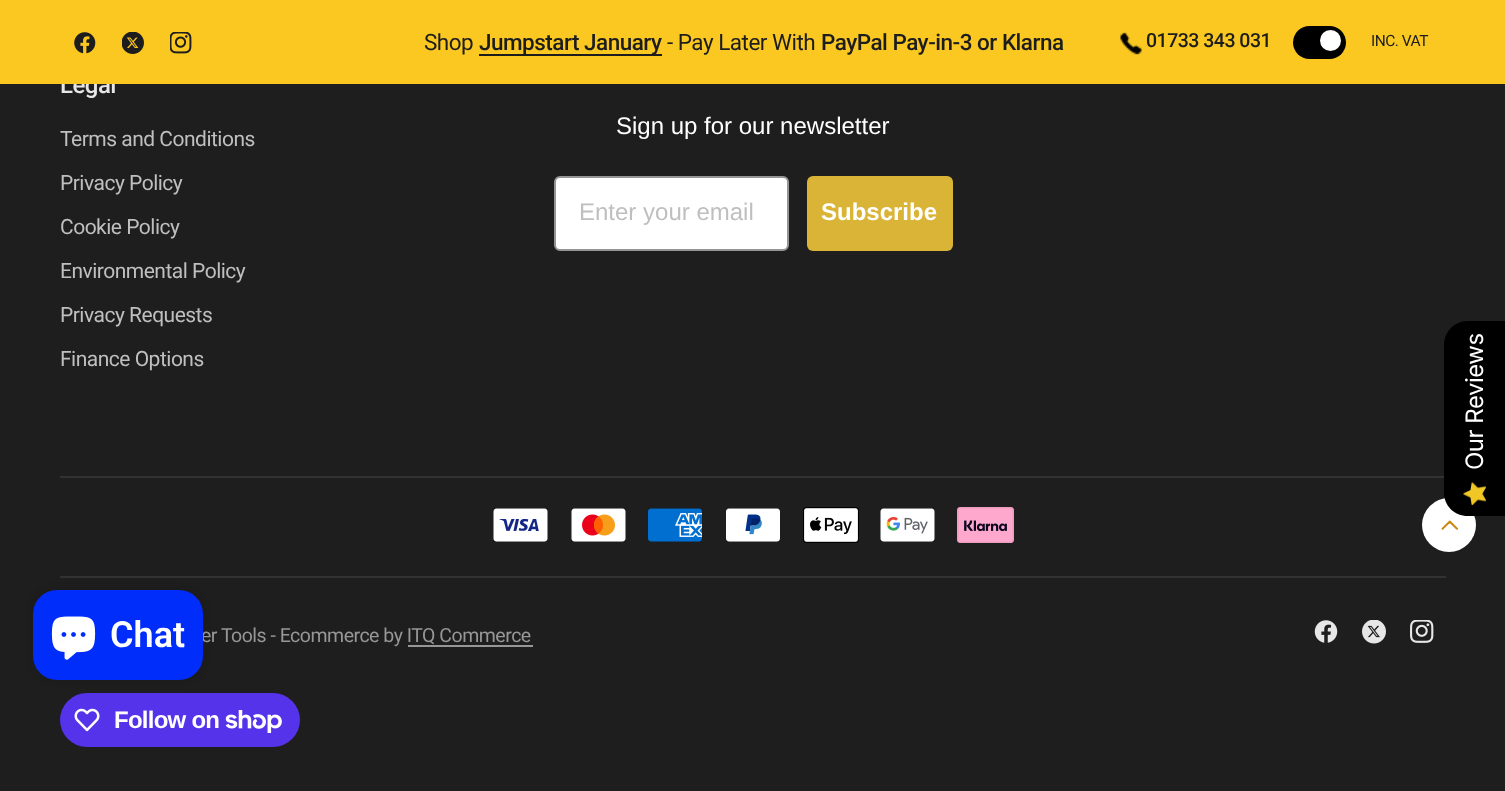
<!DOCTYPE html>
<meta charset="utf-8">
<style>body { margin: 0 } canvas { display: block }</style>
<canvas id="canvas" width="1505" height="791"></canvas>
<img id="img1" src="images/5.png" hidden>
<img id="img2" src="images/6.png" hidden>
<img id="img3" src="images/7.png" hidden>
<img id="img4" src="images/8.png" hidden>
<img id="img5" src="images/9.png" hidden>
<img id="img6" src="images/10.png" hidden>
<img id="img7" src="images/11.png" hidden>
<img id="img8" src="images/12.png" hidden>
<img id="img9" src="images/13.png" hidden>
<img id="img10" src="images/14.png" hidden>
<img id="img11" src="images/15.png" hidden>
<img id="img12" src="images/16.png" hidden>
<img id="img13" src="images/17.png" hidden>
<img id="img14" src="images/18.png" hidden>
<img id="img15" src="images/3.png" hidden>
<img id="img16" src="images/2.png" hidden>
<img id="img17" src="images/1.png" hidden>
<img id="img18" src="images/4.png" hidden>
<img id="img19" src="images/19.png" hidden>
<script>
window.onload = function () {
    const canvas = document.getElementById('canvas');
    const context = canvas.getContext('2d');
    context.miterLimit = 4;
    context.fontKerning = 'normal';

    context.fillStyle = 'rgb(30, 30, 30)';
    context.fillRect(0, 0, 1505, 791);
    context.fillStyle = 'rgb(255, 255, 255)';
    context.beginPath();
    context.roundRect(555, 177, 233, 73, 5);
    context.fill();
    context.strokeStyle = 'rgb(148, 149, 150)';
    context.lineWidth = 2;
    context.stroke();
    context.fillStyle = 'rgb(218, 180, 54)';
    context.beginPath();
    context.roundRect(807, 176, 146, 75, 6);
    context.fill();
    context.fillStyle = 'rgb(50, 50, 50)';
    context.fillRect(60, 476, 1386, 2);
    context.drawImage(document.getElementById('img1'), 493, 508, 55, 34);
    context.drawImage(document.getElementById('img2'), 571, 508, 55, 34);
    context.drawImage(document.getElementById('img3'), 648, 508, 54, 34);
    context.drawImage(document.getElementById('img4'), 726, 508, 54, 34);
    context.drawImage(document.getElementById('img5'), 803, 507, 56, 36);
    context.drawImage(document.getElementById('img6'), 880, 508, 55, 34);
    context.drawImage(document.getElementById('img7'), 957, 507, 57, 36);
    context.fillRect(60, 576, 1386, 2);
    context.fillStyle = 'rgb(151, 151, 151)';
    context.fillRect(408, 645, 125, 2);
    context.drawImage(document.getElementById('img8'), 1314, 620, 24, 23);
    context.drawImage(document.getElementById('img9'), 1362, 620, 24, 24);
    context.drawImage(document.getElementById('img10'), 1410, 620, 24, 23);
    context.fillStyle = 'rgb(84, 51, 235)';
    context.beginPath();
    context.roundRect(60, 693, 240, 54, 27);
    context.fill();
    context.drawImage(document.getElementById('img11'), 74, 708, 26, 24);
    context.drawImage(document.getElementById('img12'), 225, 710, 57, 23);
    context.fillStyle = 'rgb(255, 255, 255)';
    context.beginPath();
    context.arc(1449, 525, 27, 0, 2 * Math.PI);
    context.fill();
    context.fillStyle = 'rgb(0, 0, 0)';
    context.beginPath();
    context.moveTo(1444, 492);
    context.lineTo(1444, 345);
    context.bezierCurveTo(1444, 332, 1454, 321, 1468, 321);
    context.lineTo(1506, 321);
    context.lineTo(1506, 516);
    context.lineTo(1468, 516);
    context.bezierCurveTo(1454, 516, 1444, 506, 1444, 492);
    context.closePath();
    context.fill();
    context.drawImage(document.getElementById('img13'), 1463, 482, 23, 24);
    context.drawImage(document.getElementById('img14'), 1441, 520, 17, 10);
    context.fillStyle = 'rgba(0, 0, 0, 0.15)';
    context.filter = 'blur(4px)';
    context.beginPath();
    context.roundRect(33, 590, 170, 90, 24);
    context.fill();
    context.filter = 'none';
    context.letterSpacing = '-0.5px';
    context.font = '500 24px Roboto';
    context.fillStyle = 'rgb(231, 231, 231)';
    context.fillText('Legal', 60, 93);
    context.fillStyle = 'rgb(251, 200, 33)';
    context.fillRect(0, 0, 1505, 84);
    context.fillStyle = 'rgb(0, 0, 0)';
    context.beginPath();
    context.roundRect(1293, 26, 53, 33, 16.5);
    context.fill();
    context.fillStyle = 'rgb(255, 255, 255)';
    context.beginPath();
    context.arc(1330.5, 40.5, 10.5, 0, 2 * Math.PI);
    context.fill();
    context.drawImage(document.getElementById('img15'), 170, 32, 22, 22);
    context.drawImage(document.getElementById('img16'), 122, 32, 22, 22);
    context.drawImage(document.getElementById('img17'), 74, 32, 22, 22);
    context.font = '15.5px Roboto';
    context.fillStyle = 'rgb(29, 29, 29)';
    context.fillText('INC. VAT', 1371, 46);
    context.font = '500 19.5px Roboto';
    context.fillText('01733 343 031', 1146, 47);
    context.drawImage(document.getElementById('img18'), 1120, 32, 22, 23);
    context.font = '500 22.5px Roboto';
    context.fillText('PayPal Pay-in-3 or Klarna', 821, 50);
    context.font = '22.5px Roboto';
    context.fillText('- Pay Later With', 667, 50);
    context.fillRect(479, 54, 183, 2);
    context.font = '500 22.5px Roboto';
    context.fillText('Jumpstart January', 479, 50);
    context.font = '22.5px Roboto';
    context.fillText('Shop', 424, 50);
    context.font = '21px Roboto';
    context.fillStyle = 'rgb(191, 191, 191)';
    context.fillText('Terms and Conditions', 60, 146);
    context.fillText('Privacy Policy', 60, 190);
    context.fillText('Cookie Policy', 60, 234);
    context.fillText('Environmental Policy', 60, 278);
    context.fillText('Privacy Requests', 60, 322);
    context.fillText('Finance Options', 60, 366);
    context.letterSpacing = '0px';
    context.font = '24px Liberation Sans';
    context.fillStyle = 'rgb(255, 255, 255)';
    context.fillText('Sign up for our newsletter', 616, 134);
    context.fillStyle = 'rgb(191, 191, 191)';
    context.fillText('Enter your email', 579, 220);
    context.font = 'bold 24px Liberation Sans';
    context.fillStyle = 'rgb(255, 255, 255)';
    context.fillText('Subscribe', 821, 220);
    context.letterSpacing = '-0.5px';
    context.font = '19.5px Roboto';
    context.fillStyle = 'rgb(151, 151, 151)';
    context.fillText('er Tools - Ecommerce by ITQ Commerce', 201, 642);
    context.letterSpacing = '-0.75px';
    context.font = 'bold 24px Liberation Sans';
    context.fillStyle = 'rgb(255, 255, 255)';
    context.fillText('Follow on', 114, 728);
    context.letterSpacing = '-0.5px';
    context.font = '24px Inter';
    context.save();
    context.translate(1483, 470);
    context.rotate(-90 * Math.PI / 180);
    context.fillText('Our Reviews', 0, 0);
    context.restore();
    context.fillStyle = 'rgb(0, 45, 250)';
    context.beginPath();
    context.roundRect(33, 590, 170, 90, 24);
    context.fill();
    context.drawImage(document.getElementById('img19'), 51, 616, 45, 44);
    context.letterSpacing = '0px';
    context.font = '600 36px Roboto';
    context.fillStyle = 'rgb(255, 255, 255)';
    context.fillText('Chat', 110, 647);
};
</script>
